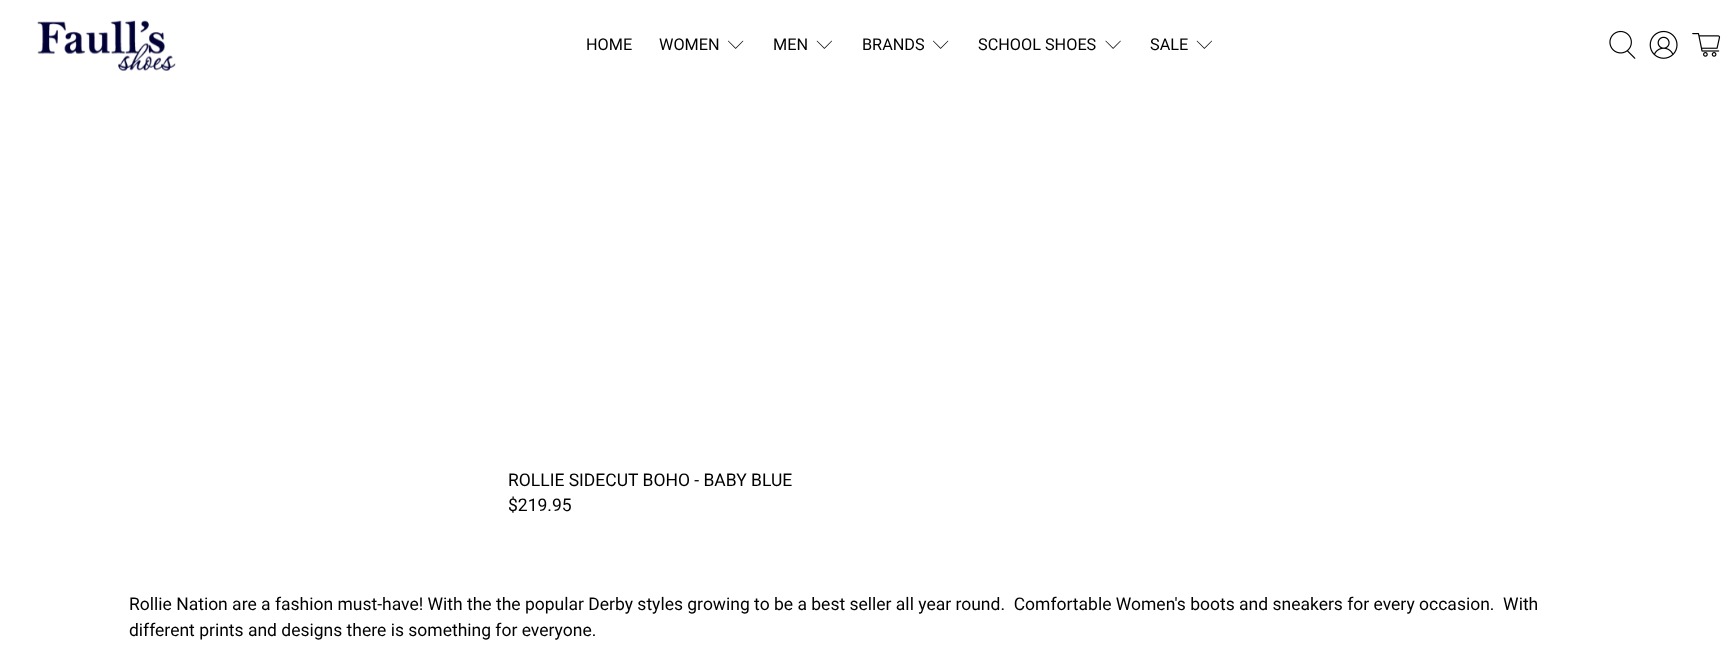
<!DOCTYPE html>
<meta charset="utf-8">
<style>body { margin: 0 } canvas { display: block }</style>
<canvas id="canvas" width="1733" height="656"></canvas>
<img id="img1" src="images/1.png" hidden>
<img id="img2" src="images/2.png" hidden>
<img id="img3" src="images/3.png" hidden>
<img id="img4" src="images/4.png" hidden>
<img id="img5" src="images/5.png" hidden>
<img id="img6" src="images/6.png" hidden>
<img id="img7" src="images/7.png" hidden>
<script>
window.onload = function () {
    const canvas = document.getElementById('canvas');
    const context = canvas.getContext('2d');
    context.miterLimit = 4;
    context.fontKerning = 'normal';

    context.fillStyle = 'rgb(255, 255, 255)';
    context.fillRect(0, 0, 1733, 656);
    context.drawImage(document.getElementById('img1'), 37, 20, 139, 51);
    context.drawImage(document.getElementById('img2'), 728, 40, 16, 9);
    context.drawImage(document.getElementById('img3'), 816, 40, 16, 9);
    context.drawImage(document.getElementById('img2'), 933, 40, 16, 9);
    context.drawImage(document.getElementById('img4'), 1105, 40, 16, 9);
    context.drawImage(document.getElementById('img3'), 1196, 40, 16, 9);
    context.drawImage(document.getElementById('img5'), 1609, 30, 27, 29);
    context.drawImage(document.getElementById('img6'), 1649, 30, 29, 29);
    context.drawImage(document.getElementById('img7'), 1692, 33, 29, 24);
    context.font = '16.25px Roboto';
    context.fillStyle = 'rgb(0, 0, 0)';
    context.fillText('HOME', 586, 50);
    context.fillText('WOMEN', 659, 50);
    context.fillText('MEN', 773, 50);
    context.fillText('BRANDS', 862, 50);
    context.fillText('SCHOOL SHOES', 978, 50);
    context.fillText('SALE', 1150, 50);
    context.font = '17.5px Roboto';
    context.fillText('ROLLIE SIDECUT BOHO - BABY BLUE', 508, 486);
    context.fillText('$219.95', 508, 511);
    context.fillText('Rollie Nation are a fashion must-have! With the the popular Derby styles growing to be a best seller all year round.  Comfortable Women\'s boots and sneakers for every occasion.  With', 129, 610);
    context.fillText('different prints and designs there is something for everyone.', 129, 636);
};
</script>
